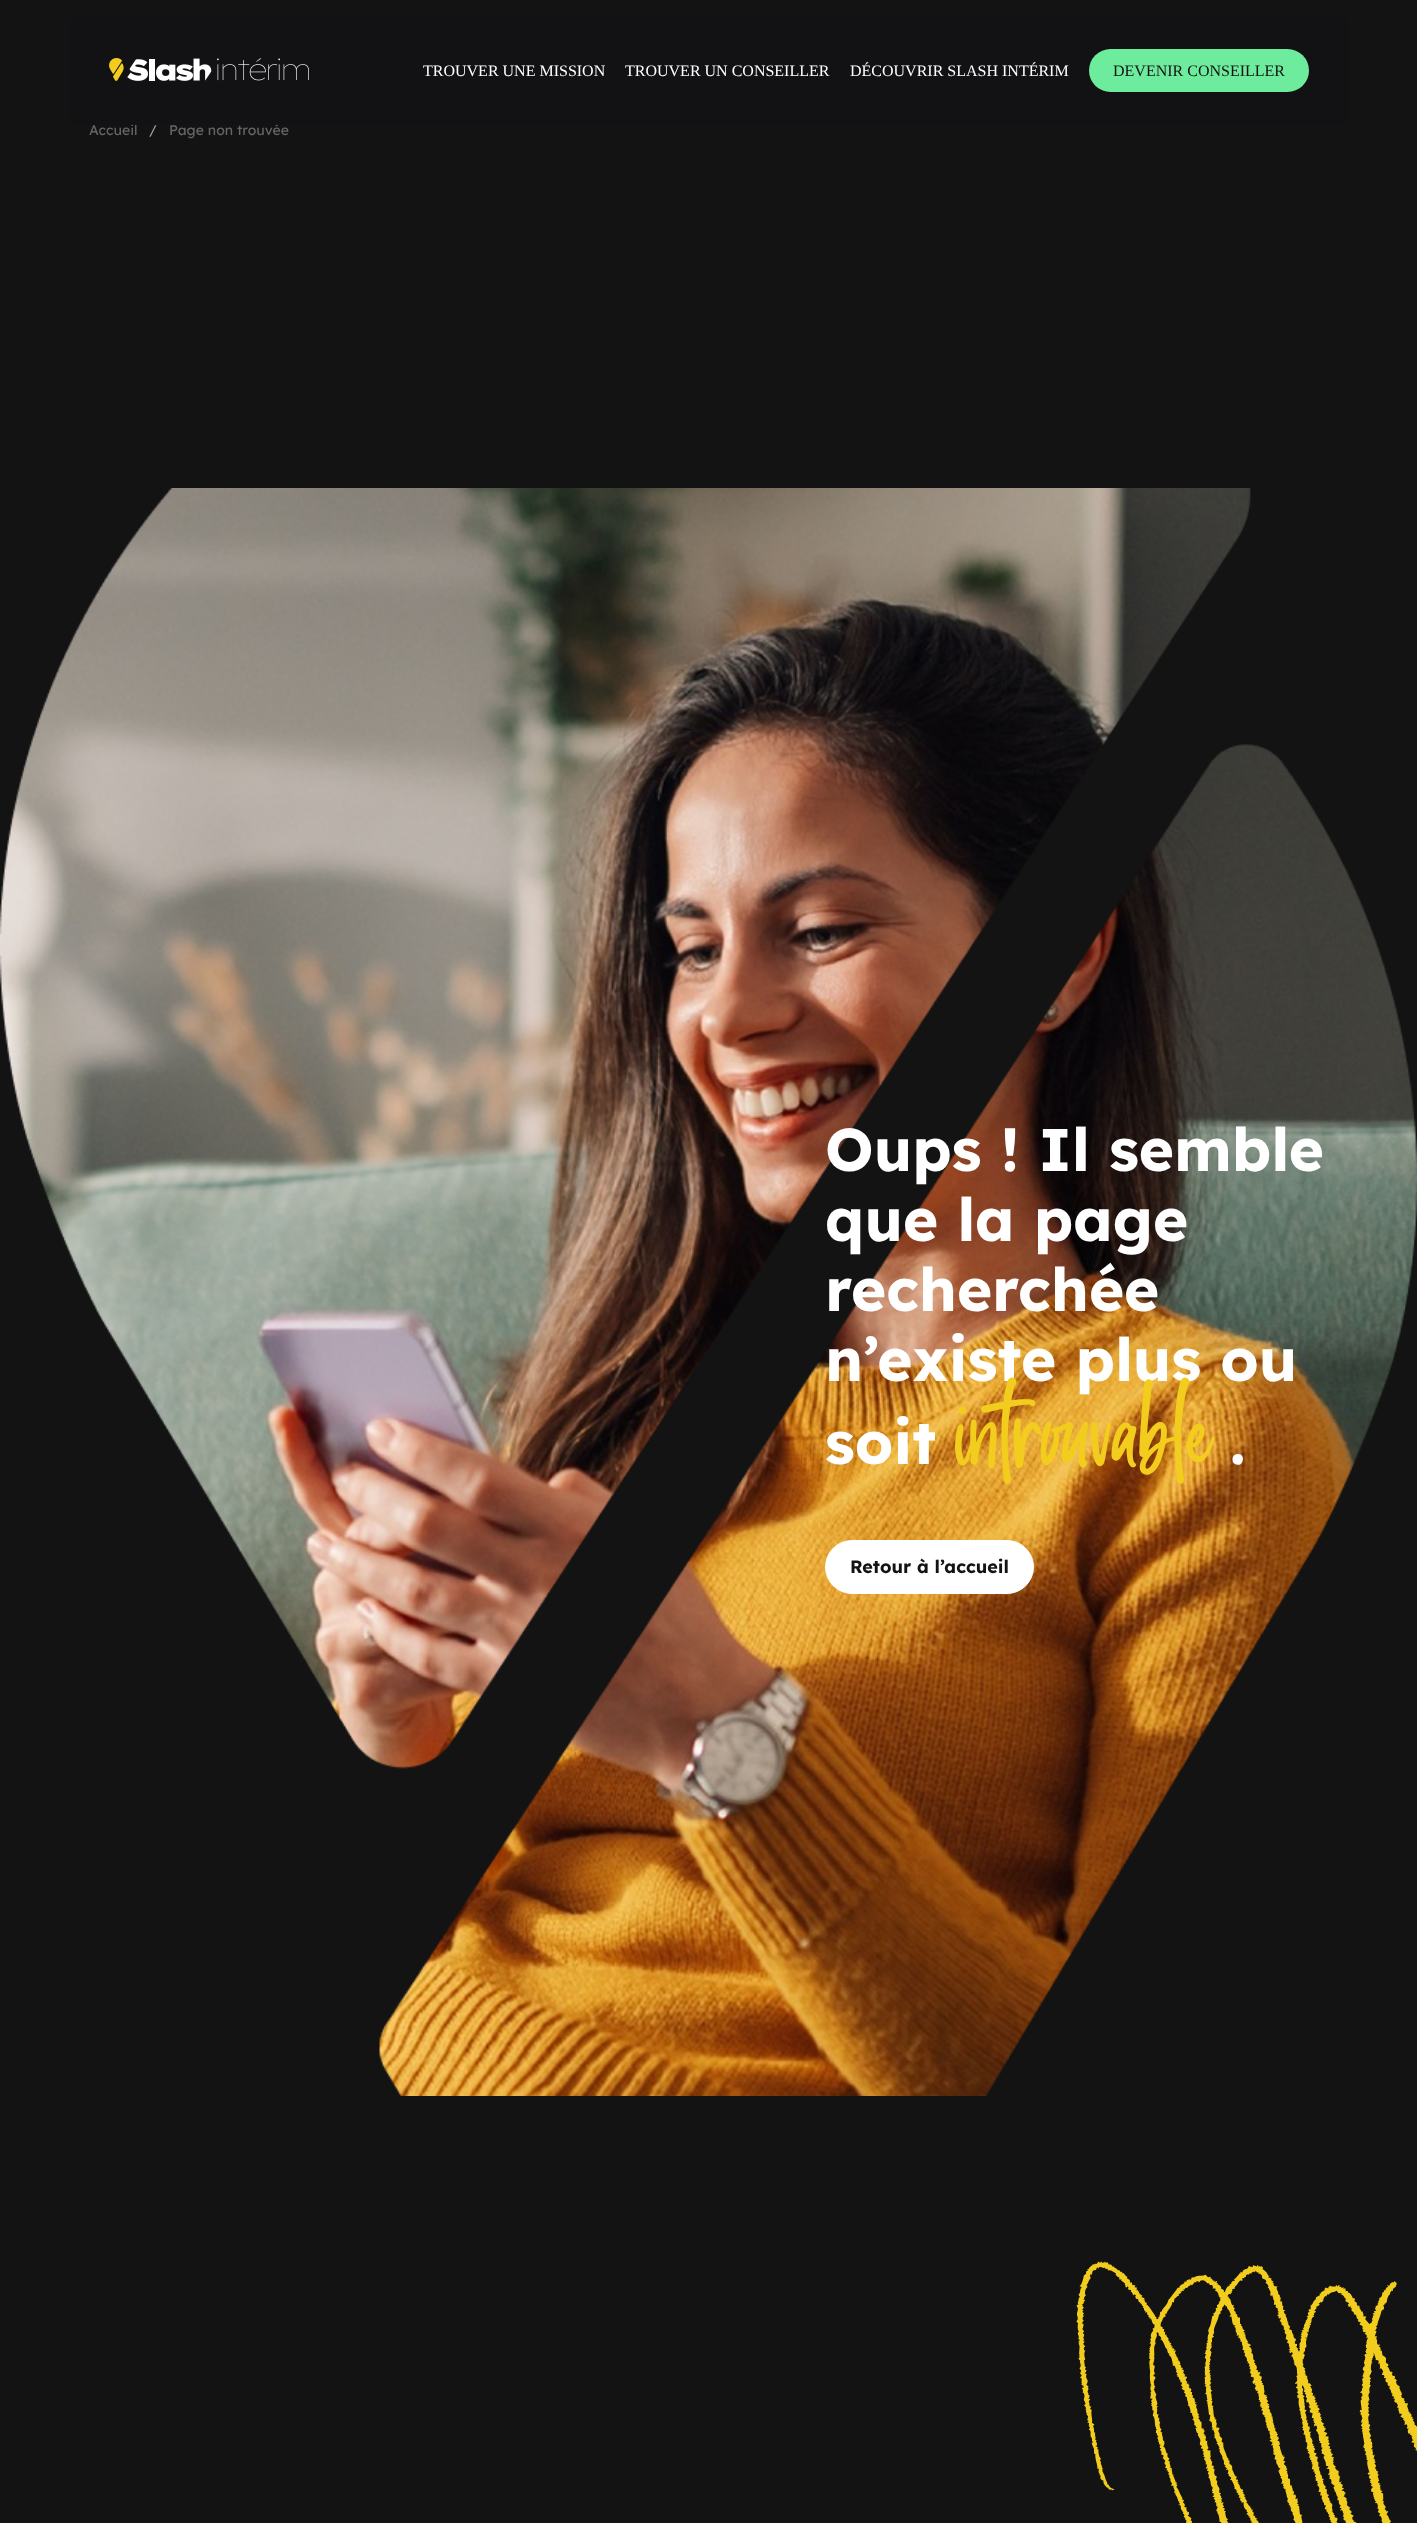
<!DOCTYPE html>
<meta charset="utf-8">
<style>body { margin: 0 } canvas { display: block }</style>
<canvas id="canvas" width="1417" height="2523"></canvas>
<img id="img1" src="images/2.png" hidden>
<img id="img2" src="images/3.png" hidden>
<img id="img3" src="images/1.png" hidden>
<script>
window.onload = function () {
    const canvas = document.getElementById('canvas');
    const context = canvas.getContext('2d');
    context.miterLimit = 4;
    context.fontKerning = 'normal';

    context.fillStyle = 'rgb(19, 19, 20)';
    context.fillRect(0, 0, 1417, 2523);
    context.drawImage(document.getElementById('img1'), 0, 488, 1417, 1608);
    context.fillStyle = 'rgb(255, 255, 255)';
    context.beginPath();
    context.roundRect(825.5, 1540.5, 208, 53, 26.5);
    context.fill();
    context.strokeStyle = 'rgb(255, 255, 255)';
    context.stroke();
    context.drawImage(document.getElementById('img2'), 1076, 2261, 341, 262);
    context.font = '14px Lexend';
    context.fillStyle = 'rgb(102, 102, 102)';
    context.fillText('Accueil', 89, 135);
    context.fillStyle = 'rgb(153, 153, 153)';
    context.fillText('/', 149, 135);
    context.fillStyle = 'rgb(102, 102, 102)';
    context.fillText('Page non trouvée', 169, 135);
    context.fillStyle = 'rgba(19, 19, 20, 0.7)';
    context.beginPath();
    context.roundRect(69, 15, 1280, 110, 10);
    context.fill();
    context.drawImage(document.getElementById('img3'), 109, 58, 200, 23);
    context.fillStyle = 'rgb(110, 236, 158)';
    context.beginPath();
    context.roundRect(1089, 49, 220, 43, 21.5);
    context.fill();
    context.font = '16px Liberation Serif';
    context.fillStyle = 'rgb(19, 19, 20)';
    context.fillText('DEVENIR CONSEILLER', 1113, 76);
    context.fillStyle = 'rgb(255, 255, 255)';
    context.fillText('DÉCOUVRIR SLASH INTÉRIM', 850, 76);
    context.fillText('TROUVER UN CONSEILLER', 625, 76);
    context.fillText('TROUVER UNE MISSION', 423, 76);
    context.font = 'bold 60px Lexend';
    context.fillText('Oups ! Il semble', 825, 1171);
    context.fillText('que la page', 825, 1241);
    context.fillText('recherchée', 825, 1311);
    context.fillText('n’existe plus ou', 825, 1381);
    context.fillText('soit', 825, 1464);
    context.font = '40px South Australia';
    context.fillStyle = 'rgb(242, 205, 29)';
    context.fillText('introuvable', 955, 1464);
    context.font = 'bold 60px Lexend';
    context.fillStyle = 'rgb(255, 255, 255)';
    context.fillText('.', 1230, 1464);
    context.font = 'bold 18px Lexend';
    context.fillStyle = 'rgb(19, 19, 20)';
    context.fillText('Retour à l’accueil', 850, 1573);
};
</script>
